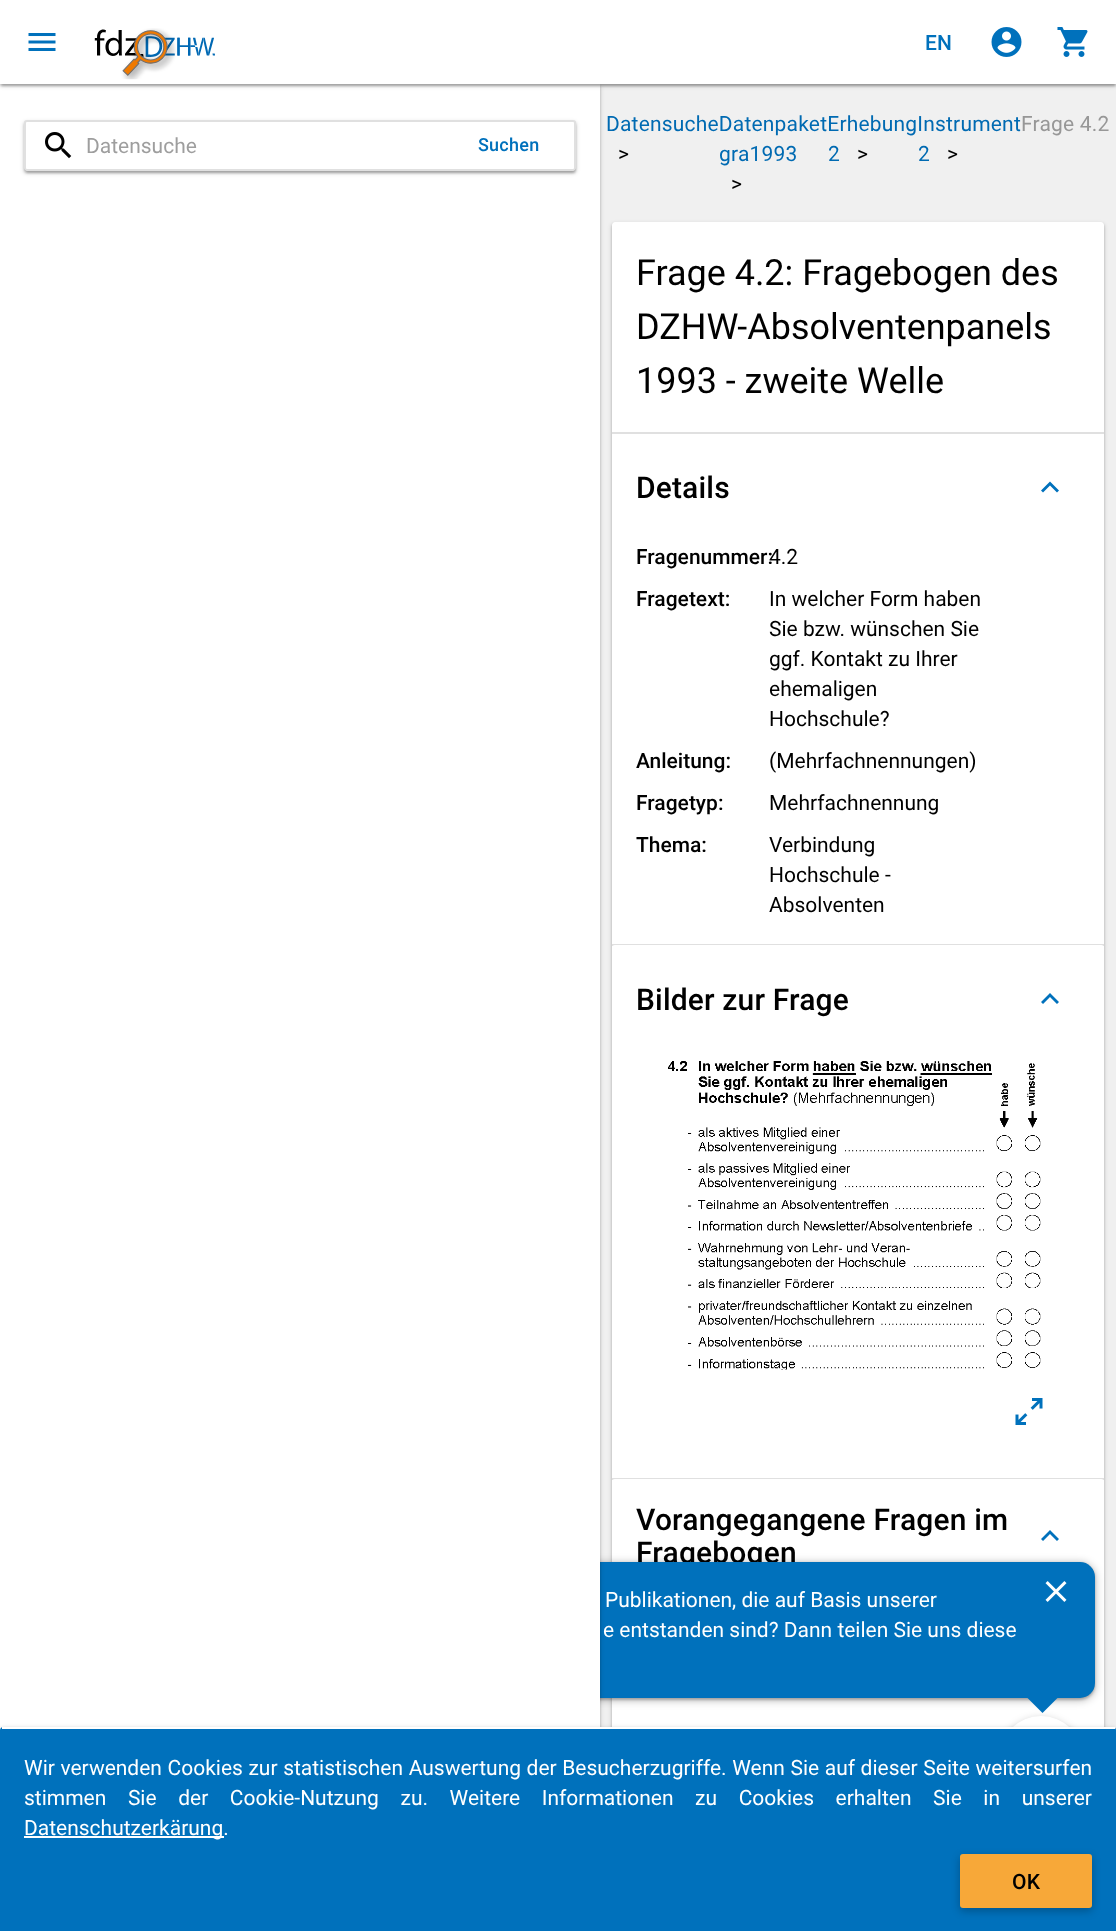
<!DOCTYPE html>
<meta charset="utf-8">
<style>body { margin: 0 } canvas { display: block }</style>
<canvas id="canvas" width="1116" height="1931"></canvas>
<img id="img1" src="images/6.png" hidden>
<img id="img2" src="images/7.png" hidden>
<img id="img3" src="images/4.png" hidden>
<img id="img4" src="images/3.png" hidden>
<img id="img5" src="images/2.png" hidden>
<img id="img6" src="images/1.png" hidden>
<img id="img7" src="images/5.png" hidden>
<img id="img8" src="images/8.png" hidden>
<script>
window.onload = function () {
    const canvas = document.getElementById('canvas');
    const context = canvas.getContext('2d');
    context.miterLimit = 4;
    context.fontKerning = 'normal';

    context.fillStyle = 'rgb(240, 240, 240)';
    context.fillRect(0, 0, 1116, 1931);
    context.fillStyle = 'rgba(0, 0, 0, 0.14)';
    context.filter = 'blur(1px)';
    context.beginPath();
    context.roundRect(612, 224, 492, 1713, 3);
    context.fill();
    context.filter = 'none';
    context.fillStyle = 'rgba(0, 0, 0, 0.2)';
    context.filter = 'blur(2px)';
    context.beginPath();
    context.roundRect(612, 224, 492, 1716, 3);
    context.fill();
    context.filter = 'none';
    context.fillStyle = 'rgb(255, 255, 255)';
    context.beginPath();
    context.moveTo(615, 222);
    context.lineTo(1101, 222);
    context.bezierCurveTo(1102.5, 222, 1104, 223.5, 1104, 225);
    context.lineTo(1104, 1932);
    context.lineTo(612, 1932);
    context.lineTo(612, 225);
    context.bezierCurveTo(612, 223.5, 613.5, 222, 615, 222);
    context.closePath();
    context.fill();
    context.fillStyle = 'rgb(224, 224, 224)';
    context.fillRect(612, 432, 492, 2);
    context.fillStyle = 'rgb(0, 113, 188)';
    context.beginPath();
    context.moveTo(1043, 492.5);
    context.lineTo(1041, 490.5);
    context.lineTo(1050, 481.5);
    context.lineTo(1059, 490.5);
    context.lineTo(1057, 492.5);
    context.lineTo(1050, 485.5);
    context.closePath();
    context.fill();
    context.fillStyle = 'rgb(224, 224, 224)';
    context.fillRect(612, 944, 492, 2);
    context.fillStyle = 'rgb(255, 255, 255)';
    context.beginPath();
    context.roundRect(612, 945, 492, 533, 3);
    context.fill();
    context.fillStyle = 'rgb(0, 113, 188)';
    context.beginPath();
    context.moveTo(1043, 1004);
    context.lineTo(1041, 1002);
    context.lineTo(1050, 993);
    context.lineTo(1059, 1002);
    context.lineTo(1057, 1004);
    context.lineTo(1050, 997);
    context.closePath();
    context.fill();
    context.drawImage(document.getElementById('img1'), 668, 1061, 373, 309);
    context.drawImage(document.getElementById('img2'), 1015, 1398, 28, 27);
    context.fillStyle = 'rgb(224, 224, 224)';
    context.fillRect(612, 1478, 492, 2);
    context.fillStyle = 'rgb(255, 255, 255)';
    context.beginPath();
    context.roundRect(612, 1479, 492, 374, 3);
    context.fill();
    context.fillStyle = 'rgb(0, 113, 188)';
    context.beginPath();
    context.moveTo(1043, 1541);
    context.lineTo(1041, 1539);
    context.lineTo(1050, 1530);
    context.lineTo(1059, 1539);
    context.lineTo(1057, 1541);
    context.lineTo(1050, 1534);
    context.closePath();
    context.fill();
    context.fillStyle = 'rgba(0, 0, 0, 0.2)';
    context.filter = 'blur(1px)';
    context.beginPath();
    context.roundRect(465, 1563, 630, 137, 15);
    context.fill();
    context.filter = 'none';
    context.fillStyle = 'rgba(0, 0, 0, 0.3)';
    context.filter = 'blur(4px)';
    context.beginPath();
    context.roundRect(465, 1563, 630, 137, 15);
    context.fill();
    context.filter = 'none';
    context.fillStyle = 'rgb(0, 113, 188)';
    context.beginPath();
    context.moveTo(1027.5, 1698);
    context.lineTo(1057.5, 1698);
    context.lineTo(1042.5, 1713);
    context.closePath();
    context.fill();
    context.fillStyle = 'rgba(0, 0, 0, 0.26)';
    context.filter = 'blur(4px)';
    context.beginPath();
    context.roundRect(999, 1719, 84, 84, 42);
    context.fill();
    context.filter = 'none';
    context.fillStyle = 'rgb(255, 255, 255)';
    context.beginPath();
    context.arc(1041, 1758, 42, 0, 2 * Math.PI);
    context.fill();
    context.letterSpacing = '0.2px';
    context.font = '21px Roboto';
    context.fillStyle = 'rgb(0, 106, 178)';
    context.fillText('DatensucheDatenpaketErhebungInstrument', 606, 131);
    context.fillStyle = 'rgb(0, 0, 0)';
    context.fillText('>', 618, 161);
    context.fillStyle = 'rgb(151, 151, 151)';
    context.fillText('Frage 4.2', 1021, 131);
    context.fillStyle = 'rgb(0, 106, 178)';
    context.fillText('gra1993', 719, 161);
    context.fillStyle = 'rgb(0, 0, 0)';
    context.fillText('>', 731, 191);
    context.fillStyle = 'rgb(0, 106, 178)';
    context.fillText('2', 828, 161);
    context.fillStyle = 'rgb(0, 0, 0)';
    context.fillText('>', 857, 161);
    context.fillStyle = 'rgb(0, 106, 178)';
    context.fillText('2', 918, 161);
    context.fillStyle = 'rgb(0, 0, 0)';
    context.fillText('>', 947, 161);
    context.letterSpacing = '0px';
    context.font = '36px Roboto';
    context.fillText('Frage 4.2: Fragebogen des', 636, 285);
    context.fillText('DZHW-Absolventenpanels', 636, 339);
    context.fillText('1993 - zweite Welle', 636, 393);
    context.letterSpacing = '0.15px';
    context.font = '500 30px Roboto';
    context.fillText('Details', 636, 498);
    context.letterSpacing = '0px';
    context.font = '500 21px Roboto';
    context.fillText('Fragenummer:', 636, 564);
    context.font = '21px Roboto';
    context.fillText('4.2', 769, 564);
    context.font = '500 21px Roboto';
    context.fillText('Fragetext:', 636, 606);
    context.font = '21px Roboto';
    context.fillText('In welcher Form haben', 769, 606);
    context.fillText('Sie bzw. wünschen Sie', 769, 636);
    context.fillText('ggf. Kontakt zu Ihrer', 769, 666);
    context.fillText('ehemaligen', 769, 696);
    context.fillText('Hochschule?', 769, 726);
    context.font = '500 21px Roboto';
    context.fillText('Anleitung:', 636, 768);
    context.font = '21px Roboto';
    context.fillText('(Mehrfachnennungen)', 769, 768);
    context.font = '500 21px Roboto';
    context.fillText('Fragetyp:', 636, 810);
    context.font = '21px Roboto';
    context.fillText('Mehrfachnennung', 769, 810);
    context.font = '500 21px Roboto';
    context.fillText('Thema:', 636, 852);
    context.font = '21px Roboto';
    context.fillText('Verbindung', 769, 852);
    context.fillText('Hochschule -', 769, 882);
    context.fillText('Absolventen', 769, 912);
    context.letterSpacing = '0.15px';
    context.font = '500 30px Roboto';
    context.fillText('Bilder zur Frage', 636, 1010);
    context.fillText('Vorangegangene Fragen im', 636, 1530);
    context.fillText('Fragebogen', 636, 1563);
    context.fillStyle = 'rgb(0, 113, 188)';
    context.beginPath();
    context.roundRect(465, 1562, 630, 136, 15);
    context.fill();
    context.fillStyle = 'rgba(0, 0, 0, 0.2)';
    context.filter = 'blur(2px)';
    context.beginPath();
    context.rect(0, 86, 600, 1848);
    context.fill();
    context.filter = 'none';
    context.fillStyle = 'rgba(0, 0, 0, 0.14)';
    context.filter = 'blur(1px)';
    context.beginPath();
    context.rect(0, 86, 600, 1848);
    context.fill();
    context.filter = 'none';
    context.fillStyle = 'rgb(255, 255, 255)';
    context.fillRect(0, 84, 600, 1646);
    context.fillStyle = 'rgba(0, 0, 0, 0.2)';
    context.filter = 'blur(2px)';
    context.beginPath();
    context.rect(0, 2, 1116, 84);
    context.fill();
    context.filter = 'none';
    context.fillStyle = 'rgba(0, 0, 0, 0.14)';
    context.filter = 'blur(1px)';
    context.beginPath();
    context.rect(0, 2, 1116, 84);
    context.fill();
    context.filter = 'none';
    context.fillStyle = 'rgba(0, 0, 0, 0.12)';
    context.filter = 'blur(1px)';
    context.beginPath();
    context.rect(2, 5, 1113, 81);
    context.fill();
    context.filter = 'none';
    context.fillStyle = 'rgb(255, 255, 255)';
    context.fillRect(0, 0, 1116, 84);
    context.drawImage(document.getElementById('img3'), 1057, 27, 31, 30);
    context.drawImage(document.getElementById('img4'), 991, 27, 31, 30);
    context.letterSpacing = '0.2px';
    context.font = '500 21px Roboto';
    context.fillStyle = 'rgb(0, 113, 188)';
    context.fillText('EN', 925, 50);
    context.drawImage(document.getElementById('img5'), 94, 28, 121, 52);
    context.drawImage(document.getElementById('img6'), 28, 33, 28, 18);
    context.save();
    context.beginPath();
    context.moveTo(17, 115);
    context.lineTo(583, 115);
    context.lineTo(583, 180);
    context.lineTo(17, 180);
    context.closePath();
    context.moveTo(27, 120);
    context.lineTo(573, 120);
    context.bezierCurveTo(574.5, 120, 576, 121.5, 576, 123);
    context.lineTo(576, 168);
    context.bezierCurveTo(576, 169.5, 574.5, 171, 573, 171);
    context.lineTo(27, 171);
    context.bezierCurveTo(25.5, 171, 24, 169.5, 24, 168);
    context.lineTo(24, 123);
    context.bezierCurveTo(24, 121.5, 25.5, 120, 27, 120);
    context.closePath();
    context.clip('evenodd');
    context.fillStyle = 'rgba(0, 0, 0, 0.2)';
    context.filter = 'blur(2px)';
    context.beginPath();
    context.roundRect(24, 122, 552, 51, 3);
    context.fill();
    context.filter = 'none';
    context.restore();
    context.save();
    context.beginPath();
    context.moveTo(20, 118);
    context.lineTo(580, 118);
    context.lineTo(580, 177);
    context.lineTo(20, 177);
    context.closePath();
    context.moveTo(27, 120);
    context.lineTo(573, 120);
    context.bezierCurveTo(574.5, 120, 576, 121.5, 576, 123);
    context.lineTo(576, 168);
    context.bezierCurveTo(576, 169.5, 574.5, 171, 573, 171);
    context.lineTo(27, 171);
    context.bezierCurveTo(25.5, 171, 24, 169.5, 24, 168);
    context.lineTo(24, 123);
    context.bezierCurveTo(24, 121.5, 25.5, 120, 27, 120);
    context.closePath();
    context.clip('evenodd');
    context.fillStyle = 'rgba(0, 0, 0, 0.14)';
    context.filter = 'blur(1px)';
    context.beginPath();
    context.roundRect(24, 122, 552, 51, 3);
    context.fill();
    context.filter = 'none';
    context.restore();
    context.save();
    context.beginPath();
    context.moveTo(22, 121);
    context.lineTo(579, 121);
    context.lineTo(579, 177);
    context.lineTo(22, 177);
    context.closePath();
    context.moveTo(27, 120);
    context.lineTo(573, 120);
    context.bezierCurveTo(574.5, 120, 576, 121.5, 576, 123);
    context.lineTo(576, 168);
    context.bezierCurveTo(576, 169.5, 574.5, 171, 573, 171);
    context.lineTo(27, 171);
    context.bezierCurveTo(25.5, 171, 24, 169.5, 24, 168);
    context.lineTo(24, 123);
    context.bezierCurveTo(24, 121.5, 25.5, 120, 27, 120);
    context.closePath();
    context.clip('evenodd');
    context.fillStyle = 'rgba(0, 0, 0, 0.12)';
    context.filter = 'blur(1px)';
    context.beginPath();
    context.roundRect(26, 125, 549, 48, 1.5);
    context.fill();
    context.filter = 'none';
    context.restore();
    context.beginPath();
    context.roundRect(25, 121, 550, 49, 2);
    context.strokeStyle = 'rgba(0, 0, 0, 0.12)';
    context.lineWidth = 2;
    context.stroke();
    context.letterSpacing = '0.25px';
    context.font = '500 18px Roboto';
    context.fillText('Suchen', 478, 151);
    context.drawImage(document.getElementById('img7'), 45, 132, 27, 27);
    context.letterSpacing = '0px';
    context.font = '21px Roboto';
    context.fillStyle = 'rgb(158, 158, 158)';
    context.fillText('Datensuche', 86, 153);
    context.fillStyle = 'rgb(255, 255, 255)';
    context.fillText('Publikationen, die auf Basis unserer', 605, 1607);
    context.fillText('e entstanden sind? Dann teilen Sie uns diese', 603, 1637);
    context.drawImage(document.getElementById('img8'), 1045, 1581, 22, 21);
    context.fillStyle = 'rgba(0, 0, 0, 0.2)';
    context.filter = 'blur(2px)';
    context.beginPath();
    context.roundRect(0, 1728, 1116, 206, 3);
    context.fill();
    context.filter = 'none';
    context.fillStyle = 'rgb(0, 113, 188)';
    context.beginPath();
    context.moveTo(3, 1727);
    context.lineTo(1113, 1727);
    context.bezierCurveTo(1114.5, 1727, 1116, 1728.5, 1116, 1730);
    context.lineTo(1116, 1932);
    context.lineTo(0, 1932);
    context.lineTo(0, 1730);
    context.bezierCurveTo(0, 1728.5, 1.5, 1727, 3, 1727);
    context.closePath();
    context.fill();
    context.fillStyle = 'rgb(255, 255, 255)';
    context.fillRect(2, 1727, 1113, 2);
    context.wordSpacing = '0.4px';
    context.fillText('Wir verwenden Cookies zur statistischen Auswertung der Besucherzugriffe. Wenn Sie auf dieser Seite weitersurfen', 24, 1775);
    context.wordSpacing = '16.4px';
    context.fillText('stimmen Sie der Cookie-Nutzung zu. Weitere Informationen zu Cookies erhalten Sie in unserer', 24, 1805);
    context.fillRect(24, 1836, 200, 2);
    context.wordSpacing = '0px';
    context.fillText('Datenschutzerkärung.', 24, 1835);
    context.fillStyle = 'rgba(0, 0, 0, 0.26)';
    context.filter = 'blur(4px)';
    context.beginPath();
    context.roundRect(960, 1857, 132, 54, 3);
    context.fill();
    context.filter = 'none';
    context.fillStyle = 'rgb(247, 168, 57)';
    context.beginPath();
    context.roundRect(960, 1854, 132, 54, 3);
    context.fill();
    context.letterSpacing = '0.2px';
    context.font = '500 21px Roboto';
    context.fillStyle = 'rgb(0, 0, 0)';
    context.fillText('OK', 1012, 1889);
};
</script>
